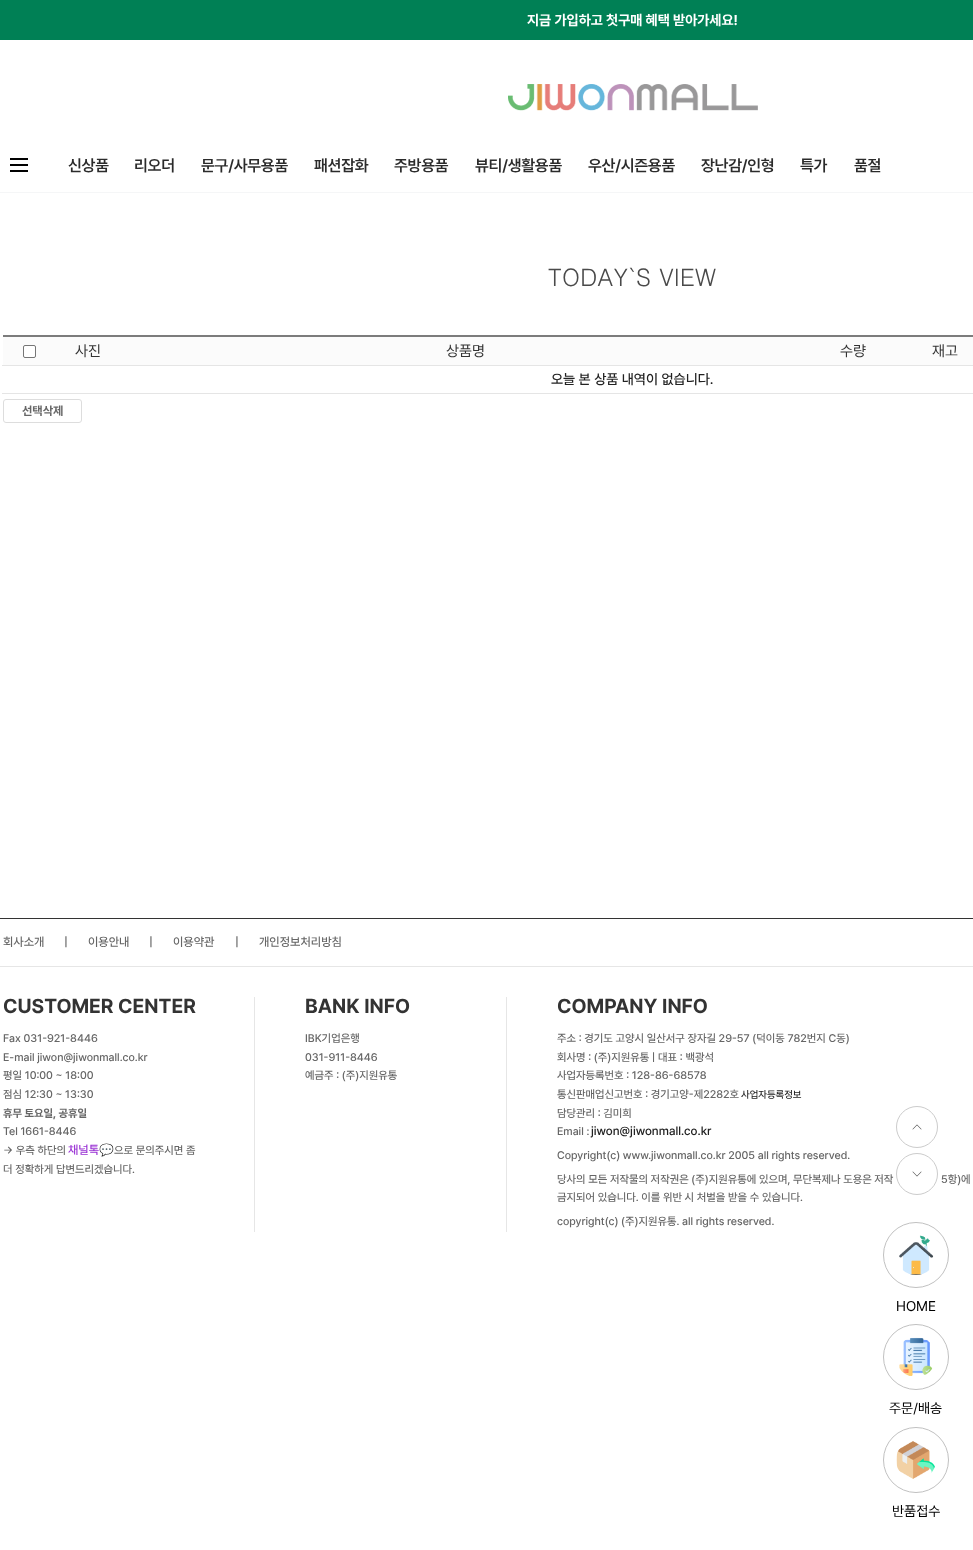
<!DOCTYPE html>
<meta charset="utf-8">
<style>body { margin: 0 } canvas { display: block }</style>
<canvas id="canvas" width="973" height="1550"></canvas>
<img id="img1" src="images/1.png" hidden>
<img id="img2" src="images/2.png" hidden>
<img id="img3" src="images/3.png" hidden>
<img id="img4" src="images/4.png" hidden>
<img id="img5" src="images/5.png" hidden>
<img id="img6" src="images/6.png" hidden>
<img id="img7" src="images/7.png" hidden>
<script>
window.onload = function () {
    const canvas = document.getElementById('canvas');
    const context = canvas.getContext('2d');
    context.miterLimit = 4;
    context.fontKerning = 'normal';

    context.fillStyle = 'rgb(255, 255, 255)';
    context.fillRect(0, 0, 973, 1550);
    context.fillStyle = 'rgb(0, 128, 85)';
    context.fillRect(0, 0, 973, 40);
    context.drawImage(document.getElementById('img1'), 508, 84, 250, 27);
    context.fillStyle = 'rgb(245, 246, 247)';
    context.fillRect(0, 192, 973, 1);
    context.drawImage(document.getElementById('img2'), 10, 158, 18, 14);
    context.fillStyle = 'rgb(124, 124, 124)';
    context.fillRect(3, 335, 970, 2);
    context.fillStyle = 'rgb(251, 251, 251)';
    context.fillRect(3, 337, 970, 28);
    context.fillStyle = 'rgb(255, 255, 255)';
    context.beginPath();
    context.roundRect(23.5, 345.5, 12, 12, 1.5);
    context.fill();
    context.strokeStyle = 'rgb(118, 118, 118)';
    context.stroke();
    context.fillStyle = 'rgb(229, 229, 229)';
    context.fillRect(2, 365, 971, 1);
    context.fillRect(2, 393, 971, 1);
    context.beginPath();
    context.roundRect(3.5, 399.5, 78, 23, 2.5);
    context.strokeStyle = 'rgb(221, 221, 221)';
    context.stroke();
    context.fillStyle = 'rgb(51, 51, 51)';
    context.fillRect(0, 918, 973, 1);
    context.fillStyle = 'rgb(230, 230, 230)';
    context.fillRect(0, 966, 973, 1);
    context.fillRect(254, 997, 1, 235);
    context.fillRect(506, 997, 1, 235);
    context.beginPath();
    context.arc(917, 1127, 20.5, 0, 2 * Math.PI);
    context.strokeStyle = 'rgb(204, 204, 204)';
    context.stroke();
    context.drawImage(document.getElementById('img3'), 912, 1124, 10, 6);
    context.beginPath();
    context.arc(917, 1174, 20.5, 0, 2 * Math.PI);
    context.stroke();
    context.drawImage(document.getElementById('img4'), 912, 1171, 10, 6);
    context.beginPath();
    context.arc(916, 1255, 32.5, 0, 2 * Math.PI);
    context.strokeStyle = 'rgb(193, 193, 193)';
    context.stroke();
    context.drawImage(document.getElementById('img5'), 899, 1235, 35, 40);
    context.beginPath();
    context.arc(916, 1357, 32.5, 0, 2 * Math.PI);
    context.stroke();
    context.drawImage(document.getElementById('img6'), 899, 1337, 34, 39);
    context.beginPath();
    context.arc(916, 1460, 32.5, 0, 2 * Math.PI);
    context.stroke();
    context.drawImage(document.getElementById('img7'), 896, 1441, 39, 38);
    context.font = 'bold 14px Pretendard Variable';
    context.fillStyle = 'rgb(255, 255, 255)';
    context.fillText('지금 가입하고 첫구매 혜택 받아가세요!', 527, 25);
    context.letterSpacing = '-0.25px';
    context.font = '600 16px Pretendard Variable';
    context.fillStyle = 'rgb(43, 43, 43)';
    context.fillText('신상품', 68, 171);
    context.fillText('리오더', 134, 171);
    context.fillText('문구/사무용품', 201, 171);
    context.fillText('패션잡화', 314, 171);
    context.fillText('주방용품', 394, 171);
    context.fillText('뷰티/생활용품', 475, 171);
    context.fillText('우산/시즌용품', 588, 171);
    context.fillText('장난감/인형', 701, 171);
    context.fillText('특가', 800, 171);
    context.fillText('품절', 854, 171);
    context.letterSpacing = '0px';
    context.font = '24px Dotum';
    context.fillStyle = 'rgb(74, 74, 74)';
    context.fillText('TODAY`S VIEW', 548, 286);
    context.font = '15px Pretendard Variable';
    context.fillStyle = 'rgb(51, 51, 51)';
    context.fillText('사진', 75, 356);
    context.fillText('상품명', 446, 356);
    context.fillText('수량', 840, 356);
    context.fillText('재고', 932, 356);
    context.font = '500 14px Pretendard Variable';
    context.fillStyle = 'rgb(34, 34, 34)';
    context.fillText('오늘 본 상품 내역이 없습니다.', 551, 384);
    context.font = 'bold 12px Pretendard Variable';
    context.fillStyle = 'rgb(102, 102, 102)';
    context.fillText('선택삭제', 22, 415);
    context.font = '500 12px Pretendard Variable';
    context.fillText('회사소개', 3, 946);
    context.fillText('|', 64, 946);
    context.fillText('이용안내', 88, 946);
    context.fillText('|', 149, 946);
    context.fillText('이용약관', 173, 946);
    context.fillText('|', 235, 946);
    context.fillText('개인정보처리방침', 259, 946);
    context.font = 'bold 20px Pretendard Variable';
    context.fillStyle = 'rgb(51, 51, 51)';
    context.fillText('CUSTOMER CENTER', 3, 1013);
    context.font = '500 11px Pretendard Variable';
    context.fillStyle = 'rgb(102, 102, 102)';
    context.fillText('Fax 031-921-8446', 3, 1042);
    context.fillText('E-mail jiwon@jiwonmall.co.kr', 3, 1061);
    context.fillText('평일 10:00 ~ 18:00', 3, 1079);
    context.fillText('점심 12:30 ~ 13:30', 3, 1098);
    context.font = 'bold 11px Pretendard Variable';
    context.fillText('휴무 토요일, 공휴일', 3, 1117);
    context.font = '500 11px Pretendard Variable';
    context.fillText('Tel 1661-8446', 3, 1135);
    context.fillText('→ 우측 하단의', 3, 1154);
    context.font = '500 12px Pretendard Variable';
    context.fillStyle = 'rgb(152, 46, 211)';
    context.fillText('채널톡', 68, 1154);
    context.font = '12px Noto Color Emoji';
    context.fillText('💬', 99, 1154);
    context.font = '500 11px Pretendard Variable';
    context.fillStyle = 'rgb(102, 102, 102)';
    context.fillText('으로 문의주시면 좀', 114, 1154);
    context.fillText('더 정확하게 답변드리겠습니다.', 3, 1173);
    context.font = 'bold 20px Pretendard Variable';
    context.fillStyle = 'rgb(51, 51, 51)';
    context.fillText('BANK INFO', 305, 1013);
    context.font = '500 11px Pretendard Variable';
    context.fillStyle = 'rgb(102, 102, 102)';
    context.fillText('IBK기업은행', 305, 1042);
    context.fillText('031-911-8446', 305, 1061);
    context.fillText('예금주 : (주)지원유통', 305, 1079);
    context.font = 'bold 20px Pretendard Variable';
    context.fillStyle = 'rgb(51, 51, 51)';
    context.fillText('COMPANY INFO', 557, 1013);
    context.font = '500 11px Pretendard Variable';
    context.fillStyle = 'rgb(102, 102, 102)';
    context.fillText('주소 : 경기도 고양시 일산서구 장자길 29-57 (덕이동 782번지 C동)', 557, 1042);
    context.fillText('회사명 : (주)지원유통 | 대표 : 백광석', 557, 1061);
    context.fillText('사업자등록번호 : 128-86-68578', 557, 1079);
    context.fillText('통신판매업신고번호 : 경기고양-제2282호', 557, 1098);
    context.font = '500 10px Pretendard Variable';
    context.fillStyle = 'rgb(34, 34, 34)';
    context.fillText('사업자등록정보', 741, 1098);
    context.font = '500 11px Pretendard Variable';
    context.fillStyle = 'rgb(102, 102, 102)';
    context.fillText('담당관리 : 김미희', 557, 1117);
    context.fillText('Email :', 557, 1135);
    context.font = '500 12px Pretendard Variable';
    context.fillStyle = 'rgb(34, 34, 34)';
    context.fillText('jiwon@jiwonmall.co.kr', 591, 1135);
    context.font = '500 11px Pretendard Variable';
    context.fillStyle = 'rgb(102, 102, 102)';
    context.fillText('Copyright(c) www.jiwonmall.co.kr 2005 all rights reserved.', 557, 1159);
    context.fillText('당사의 모든 저작물의 저작권은 (주)지원유통에 있으며, 무단복제나 도용은 저작', 557, 1183);
    context.fillText('5항)에', 941, 1183);
    context.fillText('금지되어 있습니다. 이를 위반 시 처벌을 받을 수 있습니다.', 557, 1201);
    context.fillText('copyright(c) (주)지원유통. all rights reserved.', 557, 1225);
    context.font = '14px Pretendard Variable';
    context.fillStyle = 'rgb(0, 0, 0)';
    context.fillText('HOME', 896, 1311);
    context.fillText('주문/배송', 889, 1413);
    context.fillText('반품접수', 892, 1516);
};
</script>
